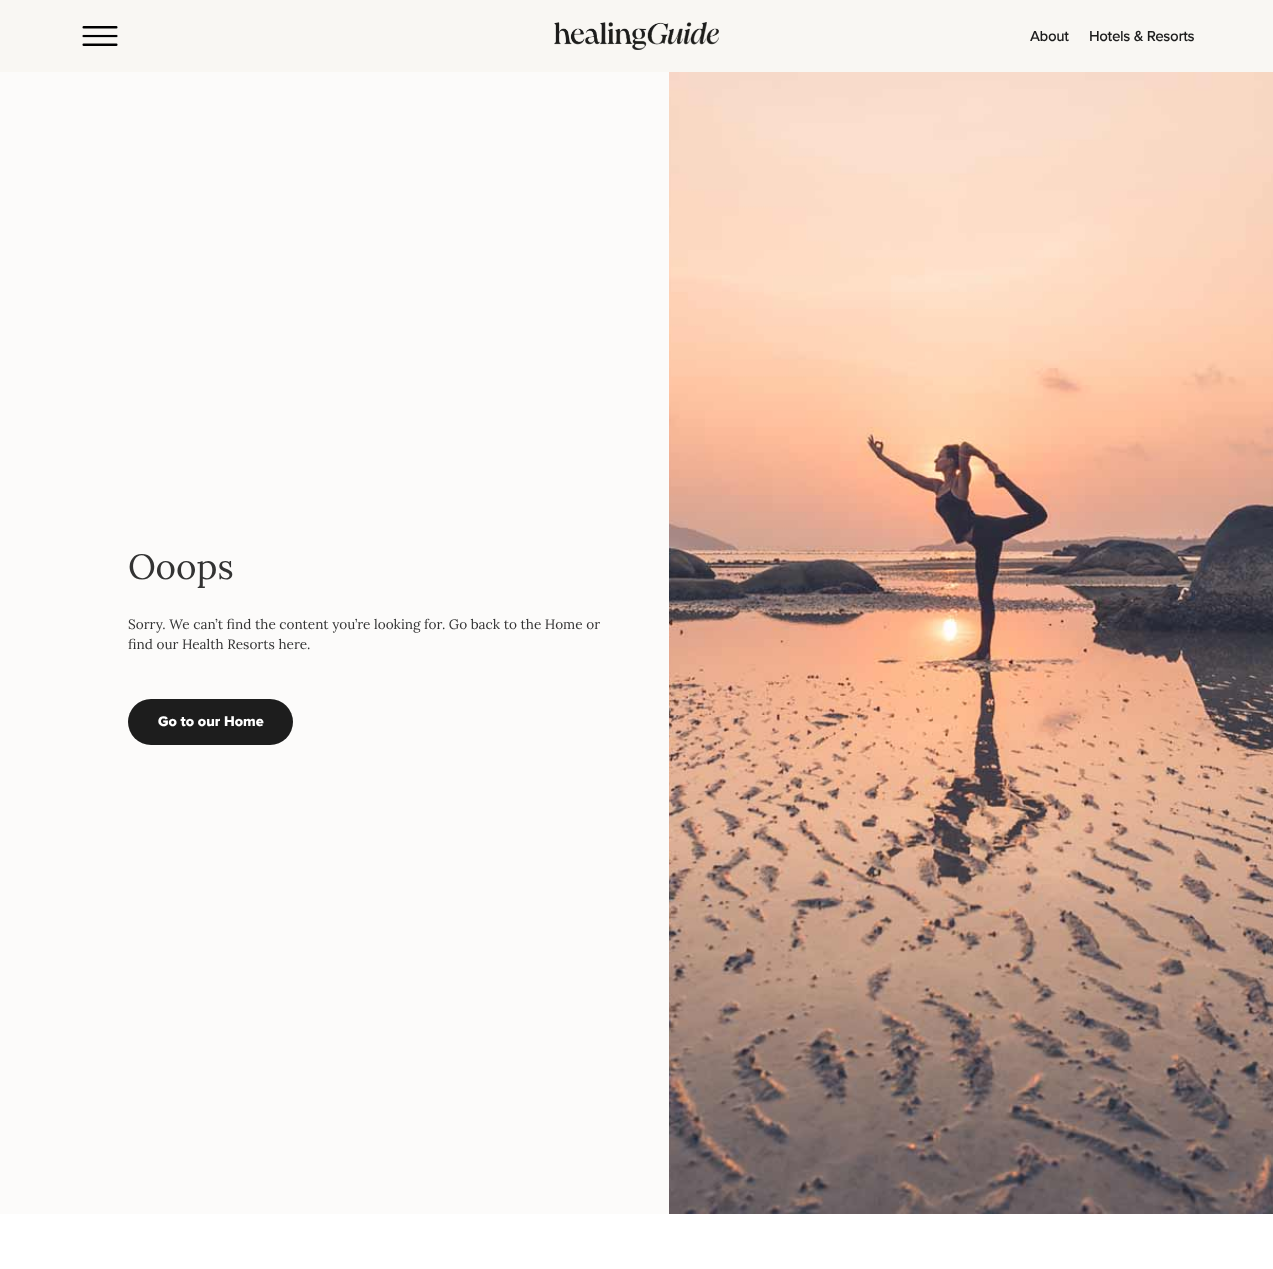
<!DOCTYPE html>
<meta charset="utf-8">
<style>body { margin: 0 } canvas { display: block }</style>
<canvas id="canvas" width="1273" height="1269"></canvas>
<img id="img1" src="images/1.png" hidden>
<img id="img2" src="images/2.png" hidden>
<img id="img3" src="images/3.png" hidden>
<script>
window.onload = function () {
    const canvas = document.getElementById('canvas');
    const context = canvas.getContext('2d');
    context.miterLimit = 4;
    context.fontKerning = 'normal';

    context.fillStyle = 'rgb(255, 255, 255)';
    context.fillRect(0, 0, 1273, 1269);
    context.fillStyle = 'rgb(249, 247, 243)';
    context.fillRect(0, 0, 1273, 72);
    context.drawImage(document.getElementById('img1'), 82, 26, 36, 20);
    context.drawImage(document.getElementById('img2'), 554, 22, 165, 28);
    context.fillStyle = 'rgb(252, 251, 250)';
    context.fillRect(0, 72, 669, 1142);
    context.fillStyle = 'rgb(29, 29, 29)';
    context.beginPath();
    context.roundRect(128, 699, 165, 46, 23);
    context.fill();
    context.drawImage(document.getElementById('img3'), 669, 72, 604, 1142);
    context.font = 'bold 14.5px Proxima Nova';
    context.fillText('About', 1030, 41);
    context.fillText('Hotels & Resorts', 1089, 41);
    context.font = '35px Lora';
    context.fillStyle = 'rgb(51, 51, 51)';
    context.fillText('Ooops', 128, 579);
    context.font = '13.6px Lora';
    context.fillText('Sorry. We can’t find the content you’re looking for. Go back to the Home or', 128, 629);
    context.fillText('find our Health Resorts here.', 128, 649);
    context.font = '800 14.5px Proxima Nova';
    context.fillStyle = 'rgb(255, 255, 255)';
    context.fillText('Go to our Home', 158, 726);
};
</script>
